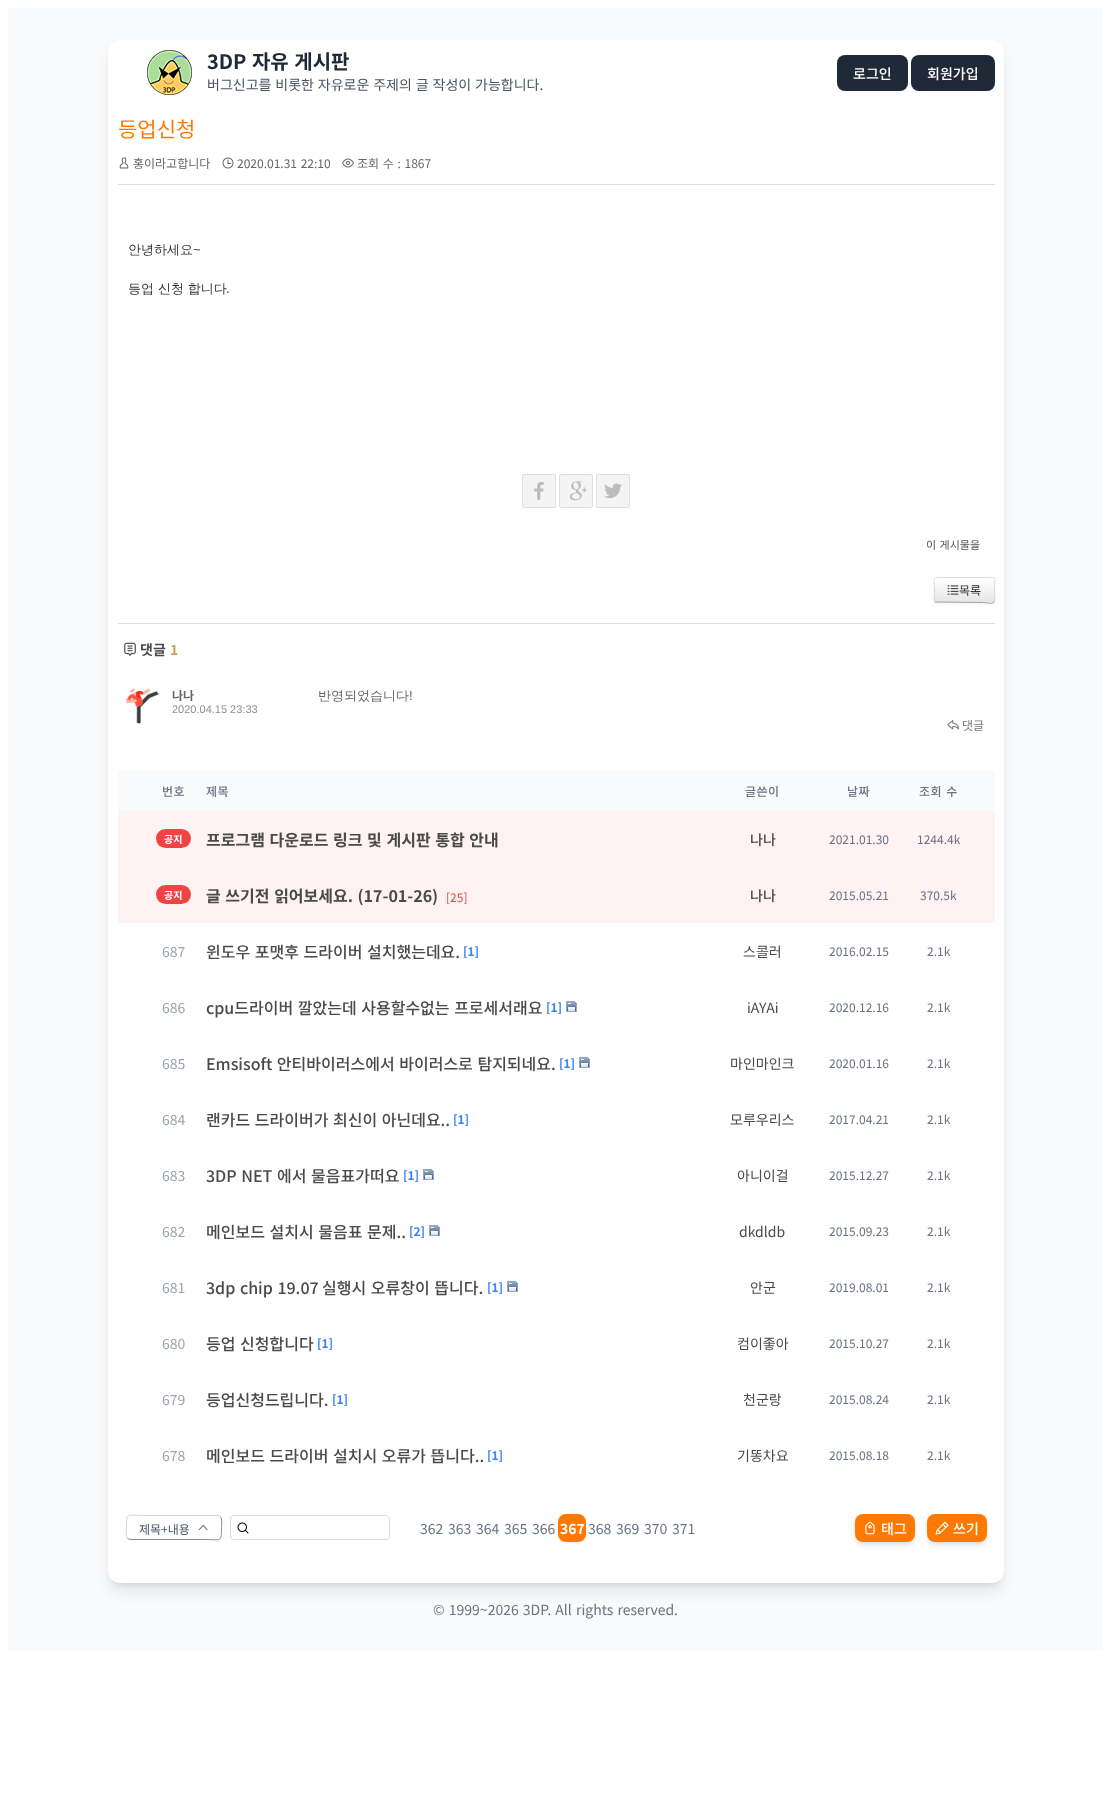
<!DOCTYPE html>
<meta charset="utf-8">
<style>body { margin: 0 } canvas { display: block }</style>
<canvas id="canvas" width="1111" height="1804"></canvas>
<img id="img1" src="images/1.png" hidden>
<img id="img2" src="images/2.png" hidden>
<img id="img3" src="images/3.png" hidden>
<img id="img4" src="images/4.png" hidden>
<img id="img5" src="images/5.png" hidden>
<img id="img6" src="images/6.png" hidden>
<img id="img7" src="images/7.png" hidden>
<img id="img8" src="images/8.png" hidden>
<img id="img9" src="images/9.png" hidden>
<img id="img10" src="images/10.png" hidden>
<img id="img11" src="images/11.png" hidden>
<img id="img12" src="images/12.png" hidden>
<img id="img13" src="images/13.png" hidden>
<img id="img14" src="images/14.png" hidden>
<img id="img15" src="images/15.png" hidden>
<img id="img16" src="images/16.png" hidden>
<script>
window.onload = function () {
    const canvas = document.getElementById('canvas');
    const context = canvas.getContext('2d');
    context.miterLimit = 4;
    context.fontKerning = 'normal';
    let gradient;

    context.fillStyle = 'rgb(255, 255, 255)';
    context.fillRect(0, 0, 1111, 1804);
    context.fillStyle = 'rgb(249, 250, 251)';
    context.fillRect(8, 8, 1095, 1643);
    context.fillStyle = 'rgba(0, 0, 0, 0.1)';
    context.filter = 'blur(3px)';
    context.beginPath();
    context.roundRect(112, 48, 888, 1535, 8);
    context.fill();
    context.filter = 'none';
    context.filter = 'blur(7.5px)';
    context.beginPath();
    context.roundRect(111, 53, 890, 1537, 9);
    context.fill();
    context.filter = 'none';
    context.fillStyle = 'rgb(255, 255, 255)';
    context.beginPath();
    context.roundRect(108, 40, 896, 1543, 12);
    context.fill();
    context.drawImage(document.getElementById('img1'), 147, 50, 45, 45);
    context.fillStyle = 'rgb(31, 41, 55)';
    context.beginPath();
    context.roundRect(837, 55, 71, 36, 8);
    context.fill();
    context.beginPath();
    context.roundRect(911, 55, 84, 36, 8);
    context.fill();
    context.fillStyle = 'rgb(221, 221, 221)';
    context.fillRect(118, 184, 877, 1);
    context.drawImage(document.getElementById('img2'), 119, 157, 10, 12);
    context.drawImage(document.getElementById('img3'), 222, 157, 12, 12);
    context.drawImage(document.getElementById('img4'), 342, 158, 12, 10);
    context.fillStyle = 'rgb(244, 244, 244)';
    context.beginPath();
    context.roundRect(522.5, 474.5, 33, 33, 1.5);
    context.fill();
    context.strokeStyle = 'rgb(224, 224, 224)';
    context.stroke();
    context.drawImage(document.getElementById('img5'), 534, 482, 10, 18);
    context.beginPath();
    context.roundRect(559.5, 474.5, 33, 33, 1.5);
    context.fill();
    context.stroke();
    context.drawImage(document.getElementById('img6'), 569, 481, 18, 20);
    context.beginPath();
    context.roundRect(596.5, 474.5, 33, 33, 1.5);
    context.fill();
    context.stroke();
    context.drawImage(document.getElementById('img7'), 604, 483, 18, 16);
    context.fillStyle = 'rgba(0, 0, 0, 0.05)';
    context.filter = 'blur(1px)';
    context.beginPath();
    context.roundRect(934, 578, 61, 26, 2);
    context.fill();
    context.filter = 'none';
    context.fillStyle = 'rgb(245, 245, 245)';
    context.beginPath();
    context.roundRect(934, 577, 61, 26, 2);
    context.fill();
    context.save();
    context.beginPath();
    context.roundRect(934, 577, 61, 26, 2);
    context.clip();
    gradient = context.createLinearGradient(965, 578, 965, 602);
    gradient.addColorStop(0, 'rgb(255, 255, 255)');
    gradient.addColorStop(1, 'rgb(230, 230, 230)');
    context.fillStyle = gradient;
    context.fillRect(934, 578, 61, 24);
    context.restore();
    context.beginPath();
    context.moveTo(994, 602);
    context.bezierCurveTo(991.5, 604.5, 987, 602.5, 983.5, 602.5);
    context.lineTo(935, 602);
    context.strokeStyle = 'rgb(162, 162, 162)';
    context.stroke();
    context.beginPath();
    context.moveTo(935, 602);
    context.bezierCurveTo(933.5, 600.5, 934.5, 592, 934.5, 590);
    context.bezierCurveTo(934.5, 575, 931.5, 577.5, 945.5, 577.5);
    context.lineTo(983.5, 577.5);
    context.bezierCurveTo(997.5, 577.5, 994.5, 575, 994.5, 590);
    context.bezierCurveTo(994.5, 592, 995.5, 600.5, 994, 602);
    context.strokeStyle = 'rgba(0, 0, 0, 0.1)';
    context.stroke();
    context.drawImage(document.getElementById('img8'), 947, 585, 12, 10);
    context.fillStyle = 'rgb(221, 221, 221)';
    context.fillRect(118, 623, 877, 1);
    context.drawImage(document.getElementById('img9'), 124, 642, 12, 14);
    context.drawImage(document.getElementById('img10'), 125, 688, 34, 36);
    context.drawImage(document.getElementById('img11'), 947, 720, 12, 10);
    context.fillStyle = 'rgb(249, 250, 251)';
    context.fillRect(118, 771, 877, 40);
    context.fillStyle = 'rgb(254, 242, 242)';
    context.fillRect(118, 811, 877, 112);
    context.fillStyle = 'rgb(239, 68, 68)';
    context.beginPath();
    context.roundRect(156, 829, 35, 19, 9.5);
    context.fill();
    context.beginPath();
    context.roundRect(156, 885, 35, 19, 9.5);
    context.fill();
    context.drawImage(document.getElementById('img12'), 566, 1001, 11, 11);
    context.drawImage(document.getElementById('img12'), 579, 1057, 11, 11);
    context.drawImage(document.getElementById('img12'), 423, 1169, 11, 11);
    context.drawImage(document.getElementById('img12'), 429, 1225, 11, 11);
    context.drawImage(document.getElementById('img12'), 507, 1281, 11, 11);
    context.beginPath();
    context.moveTo(220.5, 1516.5);
    context.bezierCurveTo(222.5, 1519, 221.5, 1525, 221.5, 1527.5);
    context.bezierCurveTo(221.5, 1543, 221.5, 1539.5, 203.5, 1539.5);
    context.lineTo(130, 1539.5);
    context.lineTo(127.5, 1538.5);
    context.strokeStyle = 'rgb(139, 142, 146)';
    context.stroke();
    context.beginPath();
    context.moveTo(127.5, 1538.5);
    context.bezierCurveTo(125.5, 1536, 126.5, 1530, 126.5, 1527.5);
    context.bezierCurveTo(126.5, 1512, 126.5, 1515.5, 144.5, 1515.5);
    context.lineTo(218, 1515.5);
    context.lineTo(220.5, 1516.5);
    context.strokeStyle = 'rgb(209, 213, 219)';
    context.stroke();
    context.drawImage(document.getElementById('img13'), 198, 1524, 10, 7);
    context.beginPath();
    context.roundRect(230.5, 1515.5, 159, 24, 3.5);
    context.strokeStyle = 'rgb(219, 219, 219)';
    context.stroke();
    context.drawImage(document.getElementById('img14'), 237, 1522, 12, 12);
    context.fillStyle = 'rgba(0, 0, 0, 0.05)';
    context.filter = 'blur(1px)';
    context.beginPath();
    context.roundRect(558, 1515, 28, 28, 8);
    context.fill();
    context.filter = 'none';
    context.fillStyle = 'rgb(255, 121, 0)';
    context.beginPath();
    context.roundRect(558, 1514, 28, 28, 8);
    context.fill();
    context.fillStyle = 'rgba(0, 0, 0, 0.1)';
    context.filter = 'blur(2px)';
    context.beginPath();
    context.roundRect(857, 1518, 56, 24, 6);
    context.fill();
    context.filter = 'none';
    context.filter = 'blur(3px)';
    context.beginPath();
    context.roundRect(856, 1519, 58, 26, 7);
    context.fill();
    context.filter = 'none';
    context.fillStyle = 'rgb(255, 121, 0)';
    context.beginPath();
    context.roundRect(855, 1514, 60, 28, 8);
    context.fill();
    context.drawImage(document.getElementById('img15'), 865, 1521, 10, 14);
    context.fillStyle = 'rgba(0, 0, 0, 0.1)';
    context.filter = 'blur(2px)';
    context.beginPath();
    context.roundRect(929, 1518, 56, 24, 6);
    context.fill();
    context.filter = 'none';
    context.filter = 'blur(3px)';
    context.beginPath();
    context.roundRect(928, 1519, 58, 26, 7);
    context.fill();
    context.filter = 'none';
    context.fillStyle = 'rgb(255, 121, 0)';
    context.beginPath();
    context.roundRect(927, 1514, 60, 28, 8);
    context.fill();
    context.drawImage(document.getElementById('img16'), 935, 1521, 14, 14);
    context.wordSpacing = '1px';
    context.font = 'bold 20px Noto Sans KR';
    context.fillStyle = 'rgb(31, 41, 55)';
    context.fillText('3DP 자유 게시판', 207, 69);
    context.wordSpacing = '0.75px';
    context.font = '14px Noto Sans KR';
    context.fillStyle = 'rgb(75, 85, 99)';
    context.fillText('버그신고를 비롯한 자유로운 주제의 글 작성이 가능합니다.', 207, 90);
    context.wordSpacing = '0px';
    context.font = '500 14px Noto Sans KR';
    context.fillStyle = 'rgb(255, 255, 255)';
    context.fillText('로그인', 853, 79);
    context.fillText('회원가입', 927, 79);
    context.font = '21px Noto Sans KR';
    context.fillStyle = 'rgb(255, 121, 0)';
    context.fillText('등업신청', 118, 137);
    context.font = '12px Noto Sans KR';
    context.fillStyle = 'rgb(102, 102, 102)';
    context.fillText('홍이라고합니다', 133, 168);
    context.wordSpacing = '1px';
    context.fillText('2020.01.31 22:10', 237, 168);
    context.fillText('조회 수 : 1867', 357, 168);
    context.wordSpacing = '0px';
    context.font = '500 13px WenQuanYi Zen Hei';
    context.fillStyle = 'rgb(51, 51, 51)';
    context.fillText('안녕하세요', 128, 254);
    context.font = '13px Liberation Sans';
    context.fillText('~', 193, 254);
    context.font = '500 13px WenQuanYi Zen Hei';
    context.fillText('등업 신청 합니다', 128, 293);
    context.font = '13px Liberation Sans';
    context.fillText('.', 226, 293);
    context.wordSpacing = '1px';
    context.font = '11px Noto Sans KR';
    context.fillStyle = 'rgb(85, 85, 85)';
    context.fillText('이 게시물을', 926, 549);
    context.wordSpacing = '0px';
    context.font = '12px Noto Sans KR';
    context.fillStyle = 'rgb(51, 51, 51)';
    context.fillText('목록', 959, 595);
    context.font = 'bold 14px Noto Sans KR';
    context.fillStyle = 'rgb(74, 74, 74)';
    context.fillText('댓글', 140, 655);
    context.fillStyle = 'rgb(205, 162, 90)';
    context.fillText('1', 170, 655);
    context.font = 'bold 12px Noto Sans KR';
    context.fillStyle = 'rgb(102, 102, 102)';
    context.fillText('나나', 172, 700);
    context.font = '11px Liberation Sans';
    context.fillStyle = 'rgb(142, 142, 142)';
    context.fillText('2020.04.15 23:33', 172, 713);
    context.font = '500 13px WenQuanYi Zen Hei';
    context.fillStyle = 'rgb(102, 102, 102)';
    context.fillText('반영되었습니다', 318, 700);
    context.font = '13px Liberation Sans';
    context.fillText('!', 409, 700);
    context.font = '12px Noto Sans KR';
    context.fillStyle = 'rgb(118, 118, 118)';
    context.fillText('댓글', 962, 730);
    context.letterSpacing = '0.5px';
    context.font = '500 12px Noto Sans KR';
    context.fillStyle = 'rgb(107, 114, 128)';
    context.fillText('번호', 162, 796);
    context.fillText('제목', 206, 796);
    context.fillText('글쓴이', 745, 796);
    context.fillText('날짜', 847, 796);
    context.wordSpacing = '1px';
    context.fillText('조회 수', 919, 796);
    context.letterSpacing = '0px';
    context.wordSpacing = '0px';
    context.font = 'bold 10px Noto Sans KR';
    context.fillStyle = 'rgb(255, 255, 255)';
    context.fillText('공지', 164, 843);
    context.wordSpacing = '1px';
    context.font = 'bold 16px Noto Sans KR';
    context.fillStyle = 'rgb(74, 74, 74)';
    context.fillText('프로그램 다운로드 링크 및 게시판 통합 안내', 206, 846);
    context.wordSpacing = '0px';
    context.font = '500 14px Noto Sans KR';
    context.fillText('나나', 750, 845);
    context.font = '12px Noto Sans KR';
    context.fillStyle = 'rgb(107, 114, 128)';
    context.fillText('2021.01.30', 829, 844);
    context.fillText('1244.4k', 917, 844);
    context.font = 'bold 10px Noto Sans KR';
    context.fillStyle = 'rgb(255, 255, 255)';
    context.fillText('공지', 164, 899);
    context.wordSpacing = '1px';
    context.font = 'bold 16px Noto Sans KR';
    context.fillStyle = 'rgb(74, 74, 74)';
    context.fillText('글 쓰기전 읽어보세요. (17-01-26)', 206, 902);
    context.wordSpacing = '0px';
    context.font = '12px Noto Sans KR';
    context.fillStyle = 'rgb(239, 68, 68)';
    context.fillText('[25]', 446, 902);
    context.font = '500 14px Noto Sans KR';
    context.fillStyle = 'rgb(74, 74, 74)';
    context.fillText('나나', 750, 901);
    context.font = '12px Noto Sans KR';
    context.fillStyle = 'rgb(107, 114, 128)';
    context.fillText('2015.05.21', 829, 900);
    context.fillText('370.5k', 920, 900);
    context.font = '14px Noto Sans KR';
    context.fillStyle = 'rgb(156, 163, 175)';
    context.fillText('687', 162, 957);
    context.wordSpacing = '1px';
    context.font = '500 16px Noto Sans KR';
    context.fillStyle = 'rgb(74, 74, 74)';
    context.fillText('윈도우 포맷후 드라이버 설치했는데요.', 206, 958);
    context.wordSpacing = '0px';
    context.font = 'bold 12px Noto Sans KR';
    context.fillStyle = 'rgb(59, 130, 246)';
    context.fillText('[1]', 463, 956);
    context.font = '14px Noto Sans KR';
    context.fillStyle = 'rgb(74, 74, 74)';
    context.fillText('스콜러', 743, 957);
    context.font = '12px Noto Sans KR';
    context.fillStyle = 'rgb(107, 114, 128)';
    context.fillText('2016.02.15', 829, 956);
    context.fillText('2.1k', 927, 956);
    context.font = '14px Noto Sans KR';
    context.fillStyle = 'rgb(156, 163, 175)';
    context.fillText('686', 162, 1013);
    context.wordSpacing = '1px';
    context.font = '500 16px Noto Sans KR';
    context.fillStyle = 'rgb(74, 74, 74)';
    context.fillText('cpu드라이버 깔았는데 사용할수없는 프로세서래요', 206, 1014);
    context.wordSpacing = '0px';
    context.font = 'bold 12px Noto Sans KR';
    context.fillStyle = 'rgb(59, 130, 246)';
    context.fillText('[1]', 546, 1012);
    context.font = '14px Noto Sans KR';
    context.fillStyle = 'rgb(74, 74, 74)';
    context.fillText('iAYAi', 747, 1013);
    context.font = '12px Noto Sans KR';
    context.fillStyle = 'rgb(107, 114, 128)';
    context.fillText('2020.12.16', 829, 1012);
    context.fillText('2.1k', 927, 1012);
    context.font = '14px Noto Sans KR';
    context.fillStyle = 'rgb(156, 163, 175)';
    context.fillText('685', 162, 1069);
    context.wordSpacing = '1px';
    context.font = '500 16px Noto Sans KR';
    context.fillStyle = 'rgb(74, 74, 74)';
    context.fillText('Emsisoft 안티바이러스에서 바이러스로 탐지되네요.', 206, 1070);
    context.wordSpacing = '0px';
    context.font = 'bold 12px Noto Sans KR';
    context.fillStyle = 'rgb(59, 130, 246)';
    context.fillText('[1]', 559, 1068);
    context.font = '14px Noto Sans KR';
    context.fillStyle = 'rgb(74, 74, 74)';
    context.fillText('마인마인크', 730, 1069);
    context.font = '12px Noto Sans KR';
    context.fillStyle = 'rgb(107, 114, 128)';
    context.fillText('2020.01.16', 829, 1068);
    context.fillText('2.1k', 927, 1068);
    context.font = '14px Noto Sans KR';
    context.fillStyle = 'rgb(156, 163, 175)';
    context.fillText('684', 162, 1125);
    context.wordSpacing = '1px';
    context.font = '500 16px Noto Sans KR';
    context.fillStyle = 'rgb(74, 74, 74)';
    context.fillText('랜카드 드라이버가 최신이 아닌데요..', 206, 1126);
    context.wordSpacing = '0px';
    context.font = 'bold 12px Noto Sans KR';
    context.fillStyle = 'rgb(59, 130, 246)';
    context.fillText('[1]', 453, 1124);
    context.font = '14px Noto Sans KR';
    context.fillStyle = 'rgb(74, 74, 74)';
    context.fillText('모루우리스', 730, 1125);
    context.font = '12px Noto Sans KR';
    context.fillStyle = 'rgb(107, 114, 128)';
    context.fillText('2017.04.21', 829, 1124);
    context.fillText('2.1k', 927, 1124);
    context.font = '14px Noto Sans KR';
    context.fillStyle = 'rgb(156, 163, 175)';
    context.fillText('683', 162, 1181);
    context.wordSpacing = '1px';
    context.font = '500 16px Noto Sans KR';
    context.fillStyle = 'rgb(74, 74, 74)';
    context.fillText('3DP NET 에서 물음표가떠요', 206, 1182);
    context.wordSpacing = '0px';
    context.font = 'bold 12px Noto Sans KR';
    context.fillStyle = 'rgb(59, 130, 246)';
    context.fillText('[1]', 403, 1180);
    context.font = '14px Noto Sans KR';
    context.fillStyle = 'rgb(74, 74, 74)';
    context.fillText('아니이걸', 737, 1181);
    context.font = '12px Noto Sans KR';
    context.fillStyle = 'rgb(107, 114, 128)';
    context.fillText('2015.12.27', 829, 1180);
    context.fillText('2.1k', 927, 1180);
    context.font = '14px Noto Sans KR';
    context.fillStyle = 'rgb(156, 163, 175)';
    context.fillText('682', 162, 1237);
    context.wordSpacing = '1px';
    context.font = '500 16px Noto Sans KR';
    context.fillStyle = 'rgb(74, 74, 74)';
    context.fillText('메인보드 설치시 물음표 문제..', 206, 1238);
    context.wordSpacing = '0px';
    context.font = 'bold 12px Noto Sans KR';
    context.fillStyle = 'rgb(59, 130, 246)';
    context.fillText('[2]', 409, 1236);
    context.font = '14px Noto Sans KR';
    context.fillStyle = 'rgb(74, 74, 74)';
    context.fillText('dkdldb', 739, 1237);
    context.font = '12px Noto Sans KR';
    context.fillStyle = 'rgb(107, 114, 128)';
    context.fillText('2015.09.23', 829, 1236);
    context.fillText('2.1k', 927, 1236);
    context.font = '14px Noto Sans KR';
    context.fillStyle = 'rgb(156, 163, 175)';
    context.fillText('681', 162, 1293);
    context.wordSpacing = '1px';
    context.font = '500 16px Noto Sans KR';
    context.fillStyle = 'rgb(74, 74, 74)';
    context.fillText('3dp chip 19.07', 206, 1294);
    context.fillText('실행시 오류창이 뜹니다.', 322, 1294);
    context.wordSpacing = '0px';
    context.font = 'bold 12px Noto Sans KR';
    context.fillStyle = 'rgb(59, 130, 246)';
    context.fillText('[1]', 487, 1292);
    context.font = '14px Noto Sans KR';
    context.fillStyle = 'rgb(74, 74, 74)';
    context.fillText('안군', 750, 1293);
    context.font = '12px Noto Sans KR';
    context.fillStyle = 'rgb(107, 114, 128)';
    context.fillText('2019.08.01', 829, 1292);
    context.fillText('2.1k', 927, 1292);
    context.font = '14px Noto Sans KR';
    context.fillStyle = 'rgb(156, 163, 175)';
    context.fillText('680', 162, 1349);
    context.wordSpacing = '1px';
    context.font = '500 16px Noto Sans KR';
    context.fillStyle = 'rgb(74, 74, 74)';
    context.fillText('등업 신청합니다', 206, 1350);
    context.wordSpacing = '0px';
    context.font = 'bold 12px Noto Sans KR';
    context.fillStyle = 'rgb(59, 130, 246)';
    context.fillText('[1]', 317, 1348);
    context.font = '14px Noto Sans KR';
    context.fillStyle = 'rgb(74, 74, 74)';
    context.fillText('컴이좋아', 737, 1349);
    context.font = '12px Noto Sans KR';
    context.fillStyle = 'rgb(107, 114, 128)';
    context.fillText('2015.10.27', 829, 1348);
    context.fillText('2.1k', 927, 1348);
    context.font = '14px Noto Sans KR';
    context.fillStyle = 'rgb(156, 163, 175)';
    context.fillText('679', 162, 1405);
    context.font = '500 16px Noto Sans KR';
    context.fillStyle = 'rgb(74, 74, 74)';
    context.fillText('등업신청드립니다.', 206, 1406);
    context.font = 'bold 12px Noto Sans KR';
    context.fillStyle = 'rgb(59, 130, 246)';
    context.fillText('[1]', 332, 1404);
    context.font = '14px Noto Sans KR';
    context.fillStyle = 'rgb(74, 74, 74)';
    context.fillText('천군랑', 743, 1405);
    context.font = '12px Noto Sans KR';
    context.fillStyle = 'rgb(107, 114, 128)';
    context.fillText('2015.08.24', 829, 1404);
    context.fillText('2.1k', 927, 1404);
    context.font = '14px Noto Sans KR';
    context.fillStyle = 'rgb(156, 163, 175)';
    context.fillText('678', 162, 1461);
    context.wordSpacing = '1px';
    context.font = '500 16px Noto Sans KR';
    context.fillStyle = 'rgb(74, 74, 74)';
    context.fillText('메인보드 드라이버 설치시 오류가 뜹니다..', 206, 1462);
    context.wordSpacing = '0px';
    context.font = 'bold 12px Noto Sans KR';
    context.fillStyle = 'rgb(59, 130, 246)';
    context.fillText('[1]', 487, 1460);
    context.font = '14px Noto Sans KR';
    context.fillStyle = 'rgb(74, 74, 74)';
    context.fillText('기똥차요', 737, 1461);
    context.font = '12px Noto Sans KR';
    context.fillStyle = 'rgb(107, 114, 128)';
    context.fillText('2015.08.18', 829, 1460);
    context.fillText('2.1k', 927, 1460);
    context.fillStyle = 'rgb(75, 85, 99)';
    context.fillText('제목+내용', 139, 1534);
    context.font = '14px Noto Sans KR';
    context.fillStyle = 'rgb(107, 114, 128)';
    context.fillText('362', 420, 1534);
    context.fillText('363', 448, 1534);
    context.fillText('364', 476, 1534);
    context.fillText('365', 504, 1534);
    context.fillText('366', 532, 1534);
    context.font = 'bold 14px Noto Sans KR';
    context.fillStyle = 'rgb(255, 255, 255)';
    context.fillText('367', 560, 1534);
    context.font = '14px Noto Sans KR';
    context.fillStyle = 'rgb(107, 114, 128)';
    context.fillText('368', 588, 1534);
    context.fillText('369', 616, 1534);
    context.fillText('370', 644, 1534);
    context.fillText('371', 672, 1534);
    context.font = '500 14px Noto Sans KR';
    context.fillStyle = 'rgb(255, 255, 255)';
    context.fillText('태그', 881, 1534);
    context.fillText('쓰기', 953, 1534);
    context.wordSpacing = '1px';
    context.font = '14px Noto Sans KR';
    context.fillStyle = 'rgb(107, 114, 128)';
    context.fillText('© 1999~2026 3DP. All rights reserved.', 433, 1615);
};
</script>
